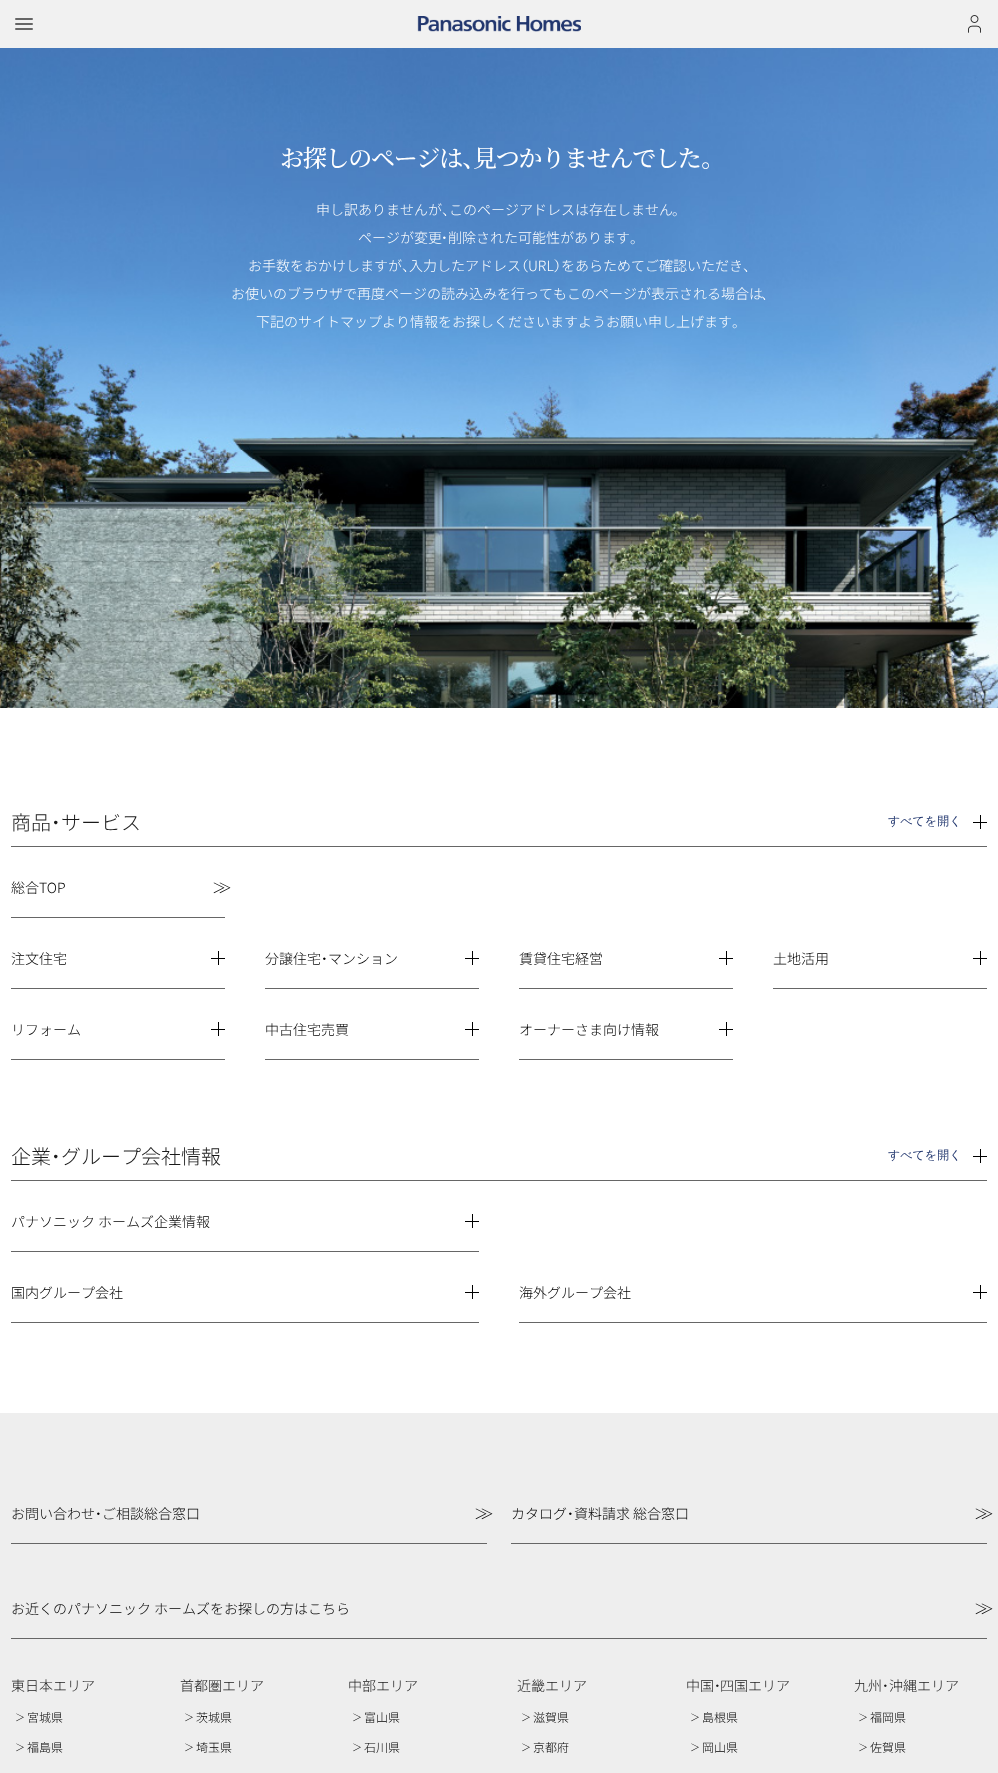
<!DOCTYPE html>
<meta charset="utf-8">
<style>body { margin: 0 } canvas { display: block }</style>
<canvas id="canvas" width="998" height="1773"></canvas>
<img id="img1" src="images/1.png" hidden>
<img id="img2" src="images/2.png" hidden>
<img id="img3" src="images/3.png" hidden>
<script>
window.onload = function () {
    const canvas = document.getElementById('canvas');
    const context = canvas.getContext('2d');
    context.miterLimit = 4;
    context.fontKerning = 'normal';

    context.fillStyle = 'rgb(255, 255, 255)';
    context.fillRect(0, 0, 998, 1773);
    context.fillStyle = 'rgb(241, 241, 241)';
    context.fillRect(0, 0, 998, 48);
    context.drawImage(document.getElementById('img1'), 417, 16, 164, 16);
    context.drawImage(document.getElementById('img2'), 968, 15, 13, 18);
    context.fillStyle = 'rgb(102, 102, 102)';
    context.beginPath();
    context.roundRect(15, 18, 18, 2, 1);
    context.fill();
    context.beginPath();
    context.roundRect(15, 23, 18, 2, 1);
    context.fill();
    context.beginPath();
    context.roundRect(15, 28, 18, 2, 1);
    context.fill();
    context.drawImage(document.getElementById('img3'), 0, 48, 998, 660);
    context.fillRect(11, 846, 976, 1);
    context.fillStyle = 'rgb(0, 0, 0)';
    context.fillRect(973, 822, 14, 1);
    context.fillRect(980, 815, 1, 14);
    context.fillStyle = 'rgb(102, 102, 102)';
    context.fillRect(11, 917, 214, 1);
    context.fillRect(11, 988, 214, 1);
    context.fillStyle = 'rgb(0, 0, 0)';
    context.fillRect(211, 958, 14, 1);
    context.fillRect(218, 951, 1, 14);
    context.fillStyle = 'rgb(102, 102, 102)';
    context.fillRect(265, 988, 214, 1);
    context.fillStyle = 'rgb(0, 0, 0)';
    context.fillRect(465, 958, 14, 1);
    context.fillRect(472, 951, 1, 14);
    context.fillStyle = 'rgb(102, 102, 102)';
    context.fillRect(519, 988, 214, 1);
    context.fillStyle = 'rgb(0, 0, 0)';
    context.fillRect(719, 958, 14, 1);
    context.fillRect(726, 951, 1, 14);
    context.fillStyle = 'rgb(102, 102, 102)';
    context.fillRect(773, 988, 214, 1);
    context.fillStyle = 'rgb(0, 0, 0)';
    context.fillRect(973, 958, 14, 1);
    context.fillRect(980, 951, 1, 14);
    context.fillStyle = 'rgb(102, 102, 102)';
    context.fillRect(11, 1059, 214, 1);
    context.fillStyle = 'rgb(0, 0, 0)';
    context.fillRect(211, 1029, 14, 1);
    context.fillRect(218, 1022, 1, 14);
    context.fillStyle = 'rgb(102, 102, 102)';
    context.fillRect(265, 1059, 214, 1);
    context.fillStyle = 'rgb(0, 0, 0)';
    context.fillRect(465, 1029, 14, 1);
    context.fillRect(472, 1022, 1, 14);
    context.fillStyle = 'rgb(102, 102, 102)';
    context.fillRect(519, 1059, 214, 1);
    context.fillStyle = 'rgb(0, 0, 0)';
    context.fillRect(719, 1029, 14, 1);
    context.fillRect(726, 1022, 1, 14);
    context.fillStyle = 'rgb(102, 102, 102)';
    context.fillRect(11, 1180, 976, 1);
    context.fillStyle = 'rgb(0, 0, 0)';
    context.fillRect(973, 1156, 14, 1);
    context.fillRect(980, 1149, 1, 14);
    context.fillStyle = 'rgb(102, 102, 102)';
    context.fillRect(11, 1251, 468, 1);
    context.fillStyle = 'rgb(0, 0, 0)';
    context.fillRect(465, 1221, 14, 1);
    context.fillRect(472, 1214, 1, 14);
    context.fillStyle = 'rgb(102, 102, 102)';
    context.fillRect(11, 1322, 468, 1);
    context.fillStyle = 'rgb(0, 0, 0)';
    context.fillRect(465, 1292, 14, 1);
    context.fillRect(472, 1285, 1, 14);
    context.fillStyle = 'rgb(102, 102, 102)';
    context.fillRect(519, 1322, 468, 1);
    context.fillStyle = 'rgb(0, 0, 0)';
    context.fillRect(973, 1292, 14, 1);
    context.fillRect(980, 1285, 1, 14);
    context.fillStyle = 'rgb(238, 238, 238)';
    context.fillRect(0, 1413, 998, 360);
    context.fillStyle = 'rgb(102, 102, 102)';
    context.fillRect(11, 1543, 476, 1);
    context.fillRect(511, 1543, 476, 1);
    context.fillRect(11, 1638, 976, 1);
    context.letterSpacing = '-1.25px';
    context.font = '200 24px Noto Serif JP';
    context.fillStyle = 'rgb(255, 255, 255)';
    context.fillText('お探しのページは', 280, 167);
    context.letterSpacing = '-1px';
    context.font = '500 24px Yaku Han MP';
    context.fillText('、', 462, 167);
    context.letterSpacing = '-1.25px';
    context.font = '200 24px Noto Serif JP';
    context.fillText('見つかりませんでした', 473, 167);
    context.letterSpacing = '-1px';
    context.font = '500 24px Yaku Han MP';
    context.fillText('。', 701, 167);
    context.letterSpacing = '0px';
    context.font = '300 14px Noto Sans JP';
    context.fillText('申し訳ありませんが', 316, 215);
    context.font = '300 14px Yaku Han MP';
    context.fillText('、', 442, 215);
    context.font = '300 14px Noto Sans JP';
    context.fillText('このページアドレスは存在しません', 449, 215);
    context.font = '300 14px Yaku Han MP';
    context.fillText('。', 672, 215);
    context.font = '300 14px Noto Sans JP';
    context.fillText('ページが変更', 358, 243);
    context.font = '300 14px Yaku Han MP';
    context.fillText('・', 441, 243);
    context.font = '300 14px Noto Sans JP';
    context.fillText('削除された可能性があります', 448, 243);
    context.font = '300 14px Yaku Han MP';
    context.fillText('。', 630, 243);
    context.font = '300 14px Noto Sans JP';
    context.fillText('お手数をおかけしますが', 248, 271);
    context.font = '300 14px Yaku Han MP';
    context.fillText('、', 402, 271);
    context.font = '300 14px Noto Sans JP';
    context.fillText('入力したアドレス', 409, 271);
    context.font = '300 14px Yaku Han MP';
    context.fillText('（', 521, 271);
    context.font = '300 14px Noto Sans JP';
    context.fillText('URL', 528, 271);
    context.font = '300 14px Yaku Han MP';
    context.fillText('）', 554, 271);
    context.font = '300 14px Noto Sans JP';
    context.fillText('をあらためてご確認いただき', 561, 271);
    context.font = '300 14px Yaku Han MP';
    context.fillText('、', 743, 271);
    context.font = '300 14px Noto Sans JP';
    context.fillText('お使いのブラウザで再度ページの読み込みを行ってもこのページが表示される場合は', 231, 299);
    context.font = '300 14px Yaku Han MP';
    context.fillText('、', 761, 299);
    context.font = '300 14px Noto Sans JP';
    context.fillText('下記のサイトマップより情報をお探しくださいますようお願い申し上げます', 256, 327);
    context.font = '300 14px Yaku Han MP';
    context.fillText('。', 732, 327);
    context.font = '300 20px Noto Sans JP';
    context.fillStyle = 'rgb(26, 26, 26)';
    context.fillText('商品', 11, 830);
    context.font = '300 20px Yaku Han MP';
    context.fillText('・', 51, 830);
    context.font = '300 20px Noto Sans JP';
    context.fillText('サービス', 61, 830);
    context.font = '500 12px WenQuanYi Zen Hei';
    context.fillStyle = 'rgb(33, 54, 110)';
    context.fillText('すべてを開く', 888, 825);
    context.font = '300 14px Noto Sans JP';
    context.fillStyle = 'rgb(0, 0, 0)';
    context.fillText('総合TOP', 11, 893);
    context.letterSpacing = '-8px';
    context.fillText('＞＞', 212, 893);
    context.letterSpacing = '0px';
    context.fillText('注文住宅', 11, 964);
    context.fillText('分譲住宅', 265, 964);
    context.font = '300 14px Yaku Han MP';
    context.fillText('・', 321, 964);
    context.font = '300 14px Noto Sans JP';
    context.fillText('マンション', 328, 964);
    context.fillText('賃貸住宅経営', 519, 964);
    context.fillText('土地活用', 773, 964);
    context.fillText('リフォーム', 11, 1035);
    context.fillText('中古住宅売買', 265, 1035);
    context.fillText('オーナーさま向け情報', 519, 1035);
    context.font = '300 20px Noto Sans JP';
    context.fillStyle = 'rgb(26, 26, 26)';
    context.fillText('企業', 11, 1164);
    context.font = '300 20px Yaku Han MP';
    context.fillText('・', 51, 1164);
    context.font = '300 20px Noto Sans JP';
    context.fillText('グループ会社情報', 61, 1164);
    context.font = '500 12px WenQuanYi Zen Hei';
    context.fillStyle = 'rgb(33, 54, 110)';
    context.fillText('すべてを開く', 888, 1159);
    context.font = '300 14px Noto Sans JP';
    context.fillStyle = 'rgb(0, 0, 0)';
    context.fillText('パナソニック ホームズ企業情報', 11, 1227);
    context.fillText('国内グループ会社', 11, 1298);
    context.fillText('海外グループ会社', 519, 1298);
    context.fillText('お問い合わせ', 11, 1519);
    context.font = '300 14px Yaku Han MP';
    context.fillText('・', 95, 1519);
    context.font = '300 14px Noto Sans JP';
    context.fillText('ご相談総合窓口', 102, 1519);
    context.letterSpacing = '-8px';
    context.fillText('＞＞', 474, 1519);
    context.letterSpacing = '0px';
    context.fillText('カタログ', 511, 1519);
    context.font = '300 14px Yaku Han MP';
    context.fillText('・', 567, 1519);
    context.font = '300 14px Noto Sans JP';
    context.fillText('資料請求 総合窓口', 574, 1519);
    context.letterSpacing = '-8px';
    context.fillText('＞＞', 974, 1519);
    context.letterSpacing = '0px';
    context.fillText('お近くのパナソニック ホームズをお探しの方はこちら', 11, 1614);
    context.letterSpacing = '-8px';
    context.fillText('＞＞', 974, 1614);
    context.letterSpacing = '0px';
    context.fillStyle = 'rgb(26, 26, 26)';
    context.fillText('東日本エリア', 11, 1691);
    context.letterSpacing = '-4px';
    context.font = '300 10px Noto Sans JP';
    context.fillStyle = 'rgb(0, 0, 0)';
    context.fillText('＞', 15, 1721);
    context.letterSpacing = '0px';
    context.font = '300 12px Noto Sans JP';
    context.fillText('宮城県', 27, 1722);
    context.letterSpacing = '-4px';
    context.font = '300 10px Noto Sans JP';
    context.fillText('＞', 15, 1751);
    context.letterSpacing = '0px';
    context.font = '300 12px Noto Sans JP';
    context.fillText('福島県', 27, 1752);
    context.font = '300 14px Noto Sans JP';
    context.fillStyle = 'rgb(26, 26, 26)';
    context.fillText('首都圏エリア', 180, 1691);
    context.letterSpacing = '-4px';
    context.font = '300 10px Noto Sans JP';
    context.fillStyle = 'rgb(0, 0, 0)';
    context.fillText('＞', 184, 1721);
    context.letterSpacing = '0px';
    context.font = '300 12px Noto Sans JP';
    context.fillText('茨城県', 196, 1722);
    context.letterSpacing = '-4px';
    context.font = '300 10px Noto Sans JP';
    context.fillText('＞', 184, 1751);
    context.letterSpacing = '0px';
    context.font = '300 12px Noto Sans JP';
    context.fillText('埼玉県', 196, 1752);
    context.font = '300 14px Noto Sans JP';
    context.fillStyle = 'rgb(26, 26, 26)';
    context.fillText('中部エリア', 348, 1691);
    context.letterSpacing = '-4px';
    context.font = '300 10px Noto Sans JP';
    context.fillStyle = 'rgb(0, 0, 0)';
    context.fillText('＞', 352, 1721);
    context.letterSpacing = '0px';
    context.font = '300 12px Noto Sans JP';
    context.fillText('富山県', 364, 1722);
    context.letterSpacing = '-4px';
    context.font = '300 10px Noto Sans JP';
    context.fillText('＞', 352, 1751);
    context.letterSpacing = '0px';
    context.font = '300 12px Noto Sans JP';
    context.fillText('石川県', 364, 1752);
    context.font = '300 14px Noto Sans JP';
    context.fillStyle = 'rgb(26, 26, 26)';
    context.fillText('近畿エリア', 517, 1691);
    context.letterSpacing = '-4px';
    context.font = '300 10px Noto Sans JP';
    context.fillStyle = 'rgb(0, 0, 0)';
    context.fillText('＞', 521, 1721);
    context.letterSpacing = '0px';
    context.font = '300 12px Noto Sans JP';
    context.fillText('滋賀県', 533, 1722);
    context.letterSpacing = '-4px';
    context.font = '300 10px Noto Sans JP';
    context.fillText('＞', 521, 1751);
    context.letterSpacing = '0px';
    context.font = '300 12px Noto Sans JP';
    context.fillText('京都府', 533, 1752);
    context.font = '300 14px Noto Sans JP';
    context.fillStyle = 'rgb(26, 26, 26)';
    context.fillText('中国', 686, 1691);
    context.font = '300 14px Yaku Han MP';
    context.fillText('・', 714, 1691);
    context.font = '300 14px Noto Sans JP';
    context.fillText('四国エリア', 720, 1691);
    context.letterSpacing = '-4px';
    context.font = '300 10px Noto Sans JP';
    context.fillStyle = 'rgb(0, 0, 0)';
    context.fillText('＞', 690, 1721);
    context.letterSpacing = '0px';
    context.font = '300 12px Noto Sans JP';
    context.fillText('島根県', 702, 1722);
    context.letterSpacing = '-4px';
    context.font = '300 10px Noto Sans JP';
    context.fillText('＞', 690, 1751);
    context.letterSpacing = '0px';
    context.font = '300 12px Noto Sans JP';
    context.fillText('岡山県', 702, 1752);
    context.font = '300 14px Noto Sans JP';
    context.fillStyle = 'rgb(26, 26, 26)';
    context.fillText('九州', 854, 1691);
    context.font = '300 14px Yaku Han MP';
    context.fillText('・', 882, 1691);
    context.font = '300 14px Noto Sans JP';
    context.fillText('沖縄エリア', 889, 1691);
    context.letterSpacing = '-4px';
    context.font = '300 10px Noto Sans JP';
    context.fillStyle = 'rgb(0, 0, 0)';
    context.fillText('＞', 858, 1721);
    context.letterSpacing = '0px';
    context.font = '300 12px Noto Sans JP';
    context.fillText('福岡県', 870, 1722);
    context.letterSpacing = '-4px';
    context.font = '300 10px Noto Sans JP';
    context.fillText('＞', 858, 1751);
    context.letterSpacing = '0px';
    context.font = '300 12px Noto Sans JP';
    context.fillText('佐賀県', 870, 1752);
};
</script>
